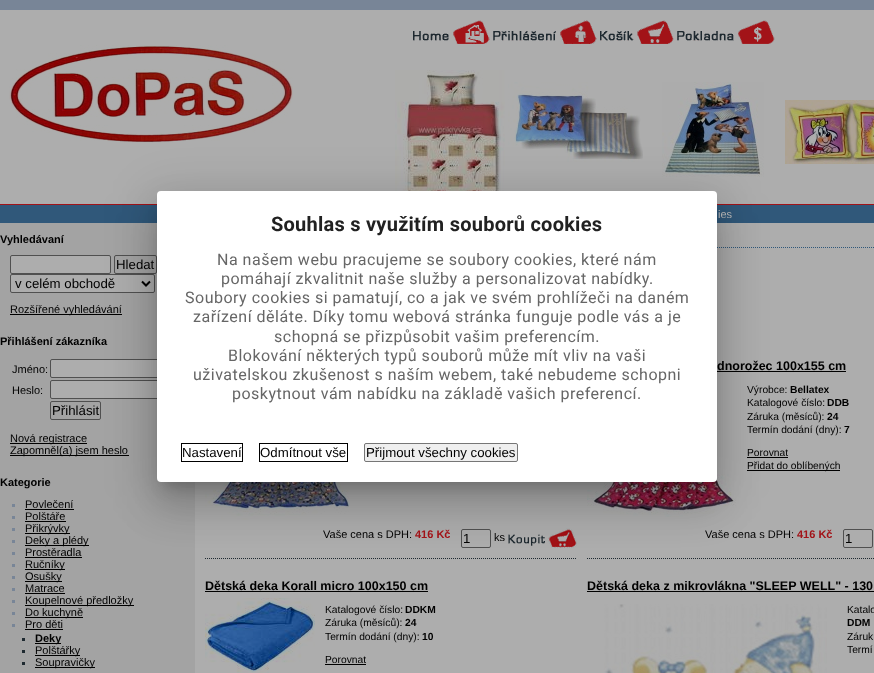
<!DOCTYPE html>
<meta charset="utf-8">
<style>body { margin: 0 } canvas { display: block }</style>
<canvas id="canvas" width="874" height="673"></canvas>
<img id="img1" src="images/1.png" hidden>
<img id="img2" src="images/2.png" hidden>
<img id="img3" src="images/3.png" hidden>
<img id="img4" src="images/4.png" hidden>
<img id="img5" src="images/5.png" hidden>
<img id="img6" src="images/6.png" hidden>
<img id="img7" src="images/7.png" hidden>
<img id="img8" src="images/8.png" hidden>
<img id="img9" src="images/9.png" hidden>
<img id="img10" src="images/10.png" hidden>
<img id="img11" src="images/11.png" hidden>
<img id="img12" src="images/12.png" hidden>
<img id="img13" src="images/13.png" hidden>
<img id="img14" src="images/14.png" hidden>
<script>
window.onload = function () {
    const canvas = document.getElementById('canvas');
    const context = canvas.getContext('2d');
    context.miterLimit = 4;
    context.fontKerning = 'normal';

    context.fillStyle = 'rgb(120, 133, 151)';
    context.fillRect(0, 0, 874, 673);
    context.fillStyle = 'rgb(173, 173, 173)';
    context.fillRect(0, 10, 874, 663);
    context.drawImage(document.getElementById('img1'), 9, 45, 284, 98);
    context.drawImage(document.getElementById('img2'), 413, 20, 77, 24);
    context.drawImage(document.getElementById('img3'), 493, 20, 104, 24);
    context.drawImage(document.getElementById('img4'), 600, 20, 74, 24);
    context.drawImage(document.getElementById('img5'), 677, 20, 98, 24);
    context.drawImage(document.getElementById('img6'), 395, 70, 110, 121);
    context.drawImage(document.getElementById('img7'), 508, 82, 135, 80);
    context.drawImage(document.getElementById('img8'), 662, 82, 102, 95);
    context.drawImage(document.getElementById('img9'), 785, 100, 89, 64);
    context.fillStyle = 'rgb(48, 88, 122)';
    context.fillRect(0, 205, 874, 18);
    context.fillStyle = 'rgb(162, 19, 24)';
    context.fillRect(0, 204, 874, 1);
    context.fillStyle = 'rgb(163, 163, 163)';
    context.fillRect(0, 223, 195, 450);
    context.fillStyle = 'rgb(173, 173, 173)';
    context.beginPath();
    context.roundRect(10.5, 255.5, 100, 18, 1.5);
    context.fill();
    context.strokeStyle = 'rgb(80, 80, 80)';
    context.stroke();
    context.beginPath();
    context.roundRect(114.5, 255.5, 42, 18, 1.5);
    context.stroke();
    context.beginPath();
    context.roundRect(10.5, 274.5, 144, 18, 1.5);
    context.fill();
    context.stroke();
    context.beginPath();
    context.moveTo(142, 281.5);
    context.lineTo(146, 285.5);
    context.lineTo(150, 281.5);
    context.strokeStyle = 'rgb(0, 0, 0)';
    context.lineWidth = 2;
    context.stroke();
    context.fillStyle = 'rgb(0, 0, 0)';
    context.fillRect(10, 314, 112, 1);
    context.fillStyle = 'rgb(173, 173, 173)';
    context.beginPath();
    context.roundRect(50.5, 359.5, 119, 18, 1.5);
    context.fill();
    context.strokeStyle = 'rgb(80, 80, 80)';
    context.lineWidth = 1;
    context.stroke();
    context.beginPath();
    context.roundRect(50.5, 380.5, 119, 18, 1.5);
    context.fill();
    context.stroke();
    context.beginPath();
    context.roundRect(50.5, 401.5, 50, 18, 1.5);
    context.stroke();
    context.fillStyle = 'rgb(0, 0, 0)';
    context.fillRect(10, 443, 77, 1);
    context.fillRect(10, 455, 119, 1);
    context.fillStyle = 'rgb(120, 133, 151)';
    context.fillRect(12, 504, 3, 3);
    context.fillStyle = 'rgb(0, 0, 0)';
    context.fillRect(25, 509, 49, 1);
    context.fillStyle = 'rgb(120, 133, 151)';
    context.fillRect(12, 516, 3, 3);
    context.fillStyle = 'rgb(0, 0, 0)';
    context.fillRect(25, 521, 41, 1);
    context.fillStyle = 'rgb(120, 133, 151)';
    context.fillRect(12, 528, 3, 3);
    context.fillStyle = 'rgb(0, 0, 0)';
    context.fillRect(25, 533, 45, 1);
    context.fillStyle = 'rgb(120, 133, 151)';
    context.fillRect(12, 540, 3, 3);
    context.fillStyle = 'rgb(0, 0, 0)';
    context.fillRect(25, 545, 64, 1);
    context.fillStyle = 'rgb(120, 133, 151)';
    context.fillRect(12, 552, 3, 3);
    context.fillStyle = 'rgb(0, 0, 0)';
    context.fillRect(25, 557, 57, 1);
    context.fillStyle = 'rgb(120, 133, 151)';
    context.fillRect(12, 564, 3, 3);
    context.fillStyle = 'rgb(0, 0, 0)';
    context.fillRect(25, 569, 40, 1);
    context.fillStyle = 'rgb(120, 133, 151)';
    context.fillRect(12, 576, 3, 3);
    context.fillStyle = 'rgb(0, 0, 0)';
    context.fillRect(25, 581, 37, 1);
    context.fillStyle = 'rgb(120, 133, 151)';
    context.fillRect(12, 588, 3, 3);
    context.fillStyle = 'rgb(0, 0, 0)';
    context.fillRect(25, 593, 40, 1);
    context.fillStyle = 'rgb(120, 133, 151)';
    context.fillRect(12, 600, 3, 3);
    context.fillStyle = 'rgb(0, 0, 0)';
    context.fillRect(25, 605, 109, 1);
    context.fillStyle = 'rgb(120, 133, 151)';
    context.fillRect(12, 612, 3, 3);
    context.fillStyle = 'rgb(0, 0, 0)';
    context.fillRect(25, 617, 58, 1);
    context.fillStyle = 'rgb(120, 133, 151)';
    context.fillRect(12, 624, 3, 3);
    context.fillStyle = 'rgb(0, 0, 0)';
    context.fillRect(25, 629, 38, 1);
    context.fillStyle = 'rgb(30, 41, 48)';
    context.fillRect(22, 638, 3, 3);
    context.fillStyle = 'rgb(0, 0, 0)';
    context.fillRect(35, 643, 26, 1);
    context.fillStyle = 'rgb(30, 41, 48)';
    context.fillRect(22, 650, 3, 3);
    context.fillStyle = 'rgb(0, 0, 0)';
    context.fillRect(35, 655, 45, 1);
    context.fillStyle = 'rgb(30, 41, 48)';
    context.fillRect(22, 662, 3, 3);
    context.fillStyle = 'rgb(0, 0, 0)';
    context.fillRect(35, 667, 60, 1);
    context.beginPath();
    context.moveTo(205, 247.5);
    context.lineTo(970, 247.5);
    context.strokeStyle = 'rgb(48, 88, 122)';
    context.setLineDash([1, 1]);
    context.stroke();
    context.beginPath();
    context.moveTo(205, 558.5);
    context.lineTo(577, 558.5);
    context.strokeStyle = 'rgb(30, 41, 48)';
    context.stroke();
    context.drawImage(document.getElementById('img10'), 205, 482, 145, 38);
    context.beginPath();
    context.roundRect(461.5, 529.5, 29, 18, 1.5);
    context.strokeStyle = 'rgb(80, 80, 80)';
    context.setLineDash([]);
    context.stroke();
    context.drawImage(document.getElementById('img11'), 508, 528, 69, 20);
    context.beginPath();
    context.moveTo(587, 558.5);
    context.lineTo(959, 558.5);
    context.strokeStyle = 'rgb(30, 41, 48)';
    context.setLineDash([1, 1]);
    context.stroke();
    context.fillRect(717, 371, 129, 1);
    context.drawImage(document.getElementById('img12'), 587, 394, 149, 123);
    context.fillRect(747, 457, 41, 1);
    context.fillRect(747, 470, 93, 1);
    context.beginPath();
    context.roundRect(843.5, 529.5, 29, 18, 1.5);
    context.strokeStyle = 'rgb(80, 80, 80)';
    context.setLineDash([]);
    context.stroke();
    context.fillRect(205, 591, 223, 1);
    context.drawImage(document.getElementById('img13'), 205, 598, 110, 75);
    context.fillRect(325, 664, 41, 1);
    context.fillRect(587, 591, 287, 1);
    context.drawImage(document.getElementById('img14'), 604, 604, 223, 69);
    context.fillStyle = 'rgba(0, 0, 0, 0.12)';
    context.filter = 'blur(23px)';
    context.beginPath();
    context.roundRect(149, 192, 576, 307, 12);
    context.fill();
    context.filter = 'none';
    context.fillStyle = 'rgba(0, 0, 0, 0.14)';
    context.filter = 'blur(19px)';
    context.beginPath();
    context.roundRect(154, 212, 566, 297, 7);
    context.fill();
    context.filter = 'none';
    context.fillStyle = 'rgba(0, 0, 0, 0.2)';
    context.filter = 'blur(7.5px)';
    context.beginPath();
    context.rect(164, 209, 546, 277);
    context.fill();
    context.filter = 'none';
    context.fillStyle = 'rgb(255, 255, 255)';
    context.beginPath();
    context.roundRect(157, 191, 560, 291, 4);
    context.fill();
    context.strokeStyle = 'rgb(0, 0, 0)';
    context.strokeRect(181.5, 443.5, 61, 18);
    context.strokeRect(259.5, 443.5, 88, 18);
    context.fillStyle = 'rgb(239, 239, 239)';
    context.beginPath();
    context.roundRect(364.5, 443.5, 153, 18, 1.5);
    context.fill();
    context.strokeStyle = 'rgb(118, 118, 118)';
    context.stroke();
    context.font = '11px Liberation Sans';
    context.fillStyle = 'rgb(173, 173, 173)';
    context.fillText('ies', 718, 218);
    context.font = 'bold 11px Liberation Sans';
    context.fillStyle = 'rgb(0, 0, 0)';
    context.fillText('Vyhledávaní', 0, 243);
    context.font = '13.25px Liberation Sans';
    context.fillText('Hledat', 116, 269);
    context.fillText('v celém obchodě', 15, 288);
    context.font = '11px Liberation Sans';
    context.fillText('Rozšířené vyhledávání', 10, 313);
    context.font = 'bold 11px Liberation Sans';
    context.fillText('Přihlášení zákazníka', 0, 345);
    context.font = '11px Liberation Sans';
    context.fillText('Jméno:', 12, 373);
    context.fillText('Heslo:', 12, 394);
    context.font = '13.25px Liberation Sans';
    context.fillText('Přihlásit', 52, 415);
    context.font = '11px Liberation Sans';
    context.fillText('Nová registrace', 10, 442);
    context.fillText('Zapomněl(a) jsem heslo', 10, 454);
    context.font = 'bold 11px Liberation Sans';
    context.fillText('Kategorie', 0, 486);
    context.font = '11px Liberation Sans';
    context.fillText('Povlečení', 25, 508);
    context.fillText('Polštáře', 25, 520);
    context.fillText('Přikrývky', 25, 532);
    context.fillText('Deky a plédy', 25, 544);
    context.fillText('Prostěradla', 25, 556);
    context.fillText('Ručníky', 25, 568);
    context.fillText('Osušky', 25, 580);
    context.fillText('Matrace', 25, 592);
    context.fillText('Koupelnové předložky', 25, 604);
    context.fillText('Do kuchyně', 25, 616);
    context.fillText('Pro děti', 25, 628);
    context.font = 'bold 11px Liberation Sans';
    context.fillText('Deky', 35, 642);
    context.font = '11px Liberation Sans';
    context.fillText('Polštářky', 35, 654);
    context.fillText('Soupravičky', 35, 666);
    context.fillText('Vaše cena s DPH:', 323, 538);
    context.font = 'bold 11px Liberation Sans';
    context.fillStyle = 'rgb(162, 19, 24)';
    context.fillText('416 Kč', 415, 538);
    context.font = '13.25px Liberation Sans';
    context.fillStyle = 'rgb(0, 0, 0)';
    context.fillText('1', 463, 543);
    context.font = '11px Liberation Sans';
    context.fillText('ks', 494, 541);
    context.font = 'bold 12.5px Liberation Sans';
    context.fillText('dnorožec 100x155 cm', 717, 370);
    context.font = '10.25px Liberation Sans';
    context.fillText('Výrobce:', 747, 393);
    context.font = 'bold 10.25px Liberation Sans';
    context.fillText('Bellatex', 790, 393);
    context.font = '10.25px Liberation Sans';
    context.fillText('Katalogové číslo:', 747, 406);
    context.font = 'bold 10.25px Liberation Sans';
    context.fillText('DDB', 827, 406);
    context.font = '10.25px Liberation Sans';
    context.fillText('Záruka (měsíců):', 747, 420);
    context.font = 'bold 10.25px Liberation Sans';
    context.fillText('24', 827, 420);
    context.font = '10.25px Liberation Sans';
    context.fillText('Termín dodání (dny):', 747, 433);
    context.font = 'bold 10.25px Liberation Sans';
    context.fillText('7', 844, 433);
    context.font = '10.25px Liberation Sans';
    context.fillText('Porovnat', 747, 456);
    context.fillText('Přidat do oblíbených', 747, 469);
    context.font = '11px Liberation Sans';
    context.fillText('Vaše cena s DPH:', 705, 538);
    context.font = 'bold 11px Liberation Sans';
    context.fillStyle = 'rgb(162, 19, 24)';
    context.fillText('416 Kč', 797, 538);
    context.font = '13.25px Liberation Sans';
    context.fillStyle = 'rgb(0, 0, 0)';
    context.fillText('1', 845, 543);
    context.font = 'bold 12.5px Liberation Sans';
    context.fillText('Dětská deka Korall micro 100x150 cm', 205, 590);
    context.font = '10.25px Liberation Sans';
    context.fillText('Katalogové číslo:', 325, 613);
    context.font = 'bold 10.25px Liberation Sans';
    context.fillText('DDKM', 405, 613);
    context.font = '10.25px Liberation Sans';
    context.fillText('Záruka (měsíců):', 325, 626);
    context.font = 'bold 10.25px Liberation Sans';
    context.fillText('24', 405, 626);
    context.font = '10.25px Liberation Sans';
    context.fillText('Termín dodání (dny):', 325, 640);
    context.font = 'bold 10.25px Liberation Sans';
    context.fillText('10', 422, 640);
    context.font = '10.25px Liberation Sans';
    context.fillText('Porovnat', 325, 663);
    context.font = 'bold 12.5px Liberation Sans';
    context.fillText('Dětská deka z mikrovlákna "SLEEP WELL" - 130', 587, 590);
    context.font = '10.25px Liberation Sans';
    context.fillText('Katalo', 847, 613);
    context.font = 'bold 10.25px Liberation Sans';
    context.fillText('DDM', 847, 626);
    context.font = '10.25px Liberation Sans';
    context.fillText('Záruk', 847, 640);
    context.fillText('Termí', 847, 653);
    context.letterSpacing = '0.25px';
    context.font = 'bold 20px Roboto';
    context.fillStyle = 'rgb(33, 33, 33)';
    context.fillText('Souhlas s využitím souborů cookies', 271, 231);
    context.letterSpacing = '0.5px';
    context.font = '16px Roboto';
    context.fillStyle = 'rgb(102, 102, 102)';
    context.fillText('Na našem webu pracujeme se soubory cookies, které nám', 217, 265);
    context.fillText('pomáhají zkvalitnit naše služby a personalizovat nabídky.', 221, 284);
    context.fillText('Soubory cookies si pamatují, co a jak ve svém prohlížeči na daném', 185, 303);
    context.fillText('zařízení děláte. Díky tomu webová stránka funguje podle vás a je', 193, 322);
    context.fillText('schopná se přizpůsobit vašim preferencím.', 274, 342);
    context.fillText('Blokování některých typů souborů může mít vliv na vaši', 228, 361);
    context.fillText('uživatelskou zkušenost s naším webem, také nebudeme schopni', 193, 380);
    context.fillText('poskytnout vám nabídku na základě vašich preferencí.', 232, 399);
    context.letterSpacing = '0px';
    context.font = '13.25px Liberation Sans';
    context.fillStyle = 'rgb(0, 0, 0)';
    context.fillText('Nastavení', 182, 457);
    context.fillText('Odmítnout vše', 260, 457);
    context.fillText('Přijmout všechny cookies', 366, 457);
};
</script>
